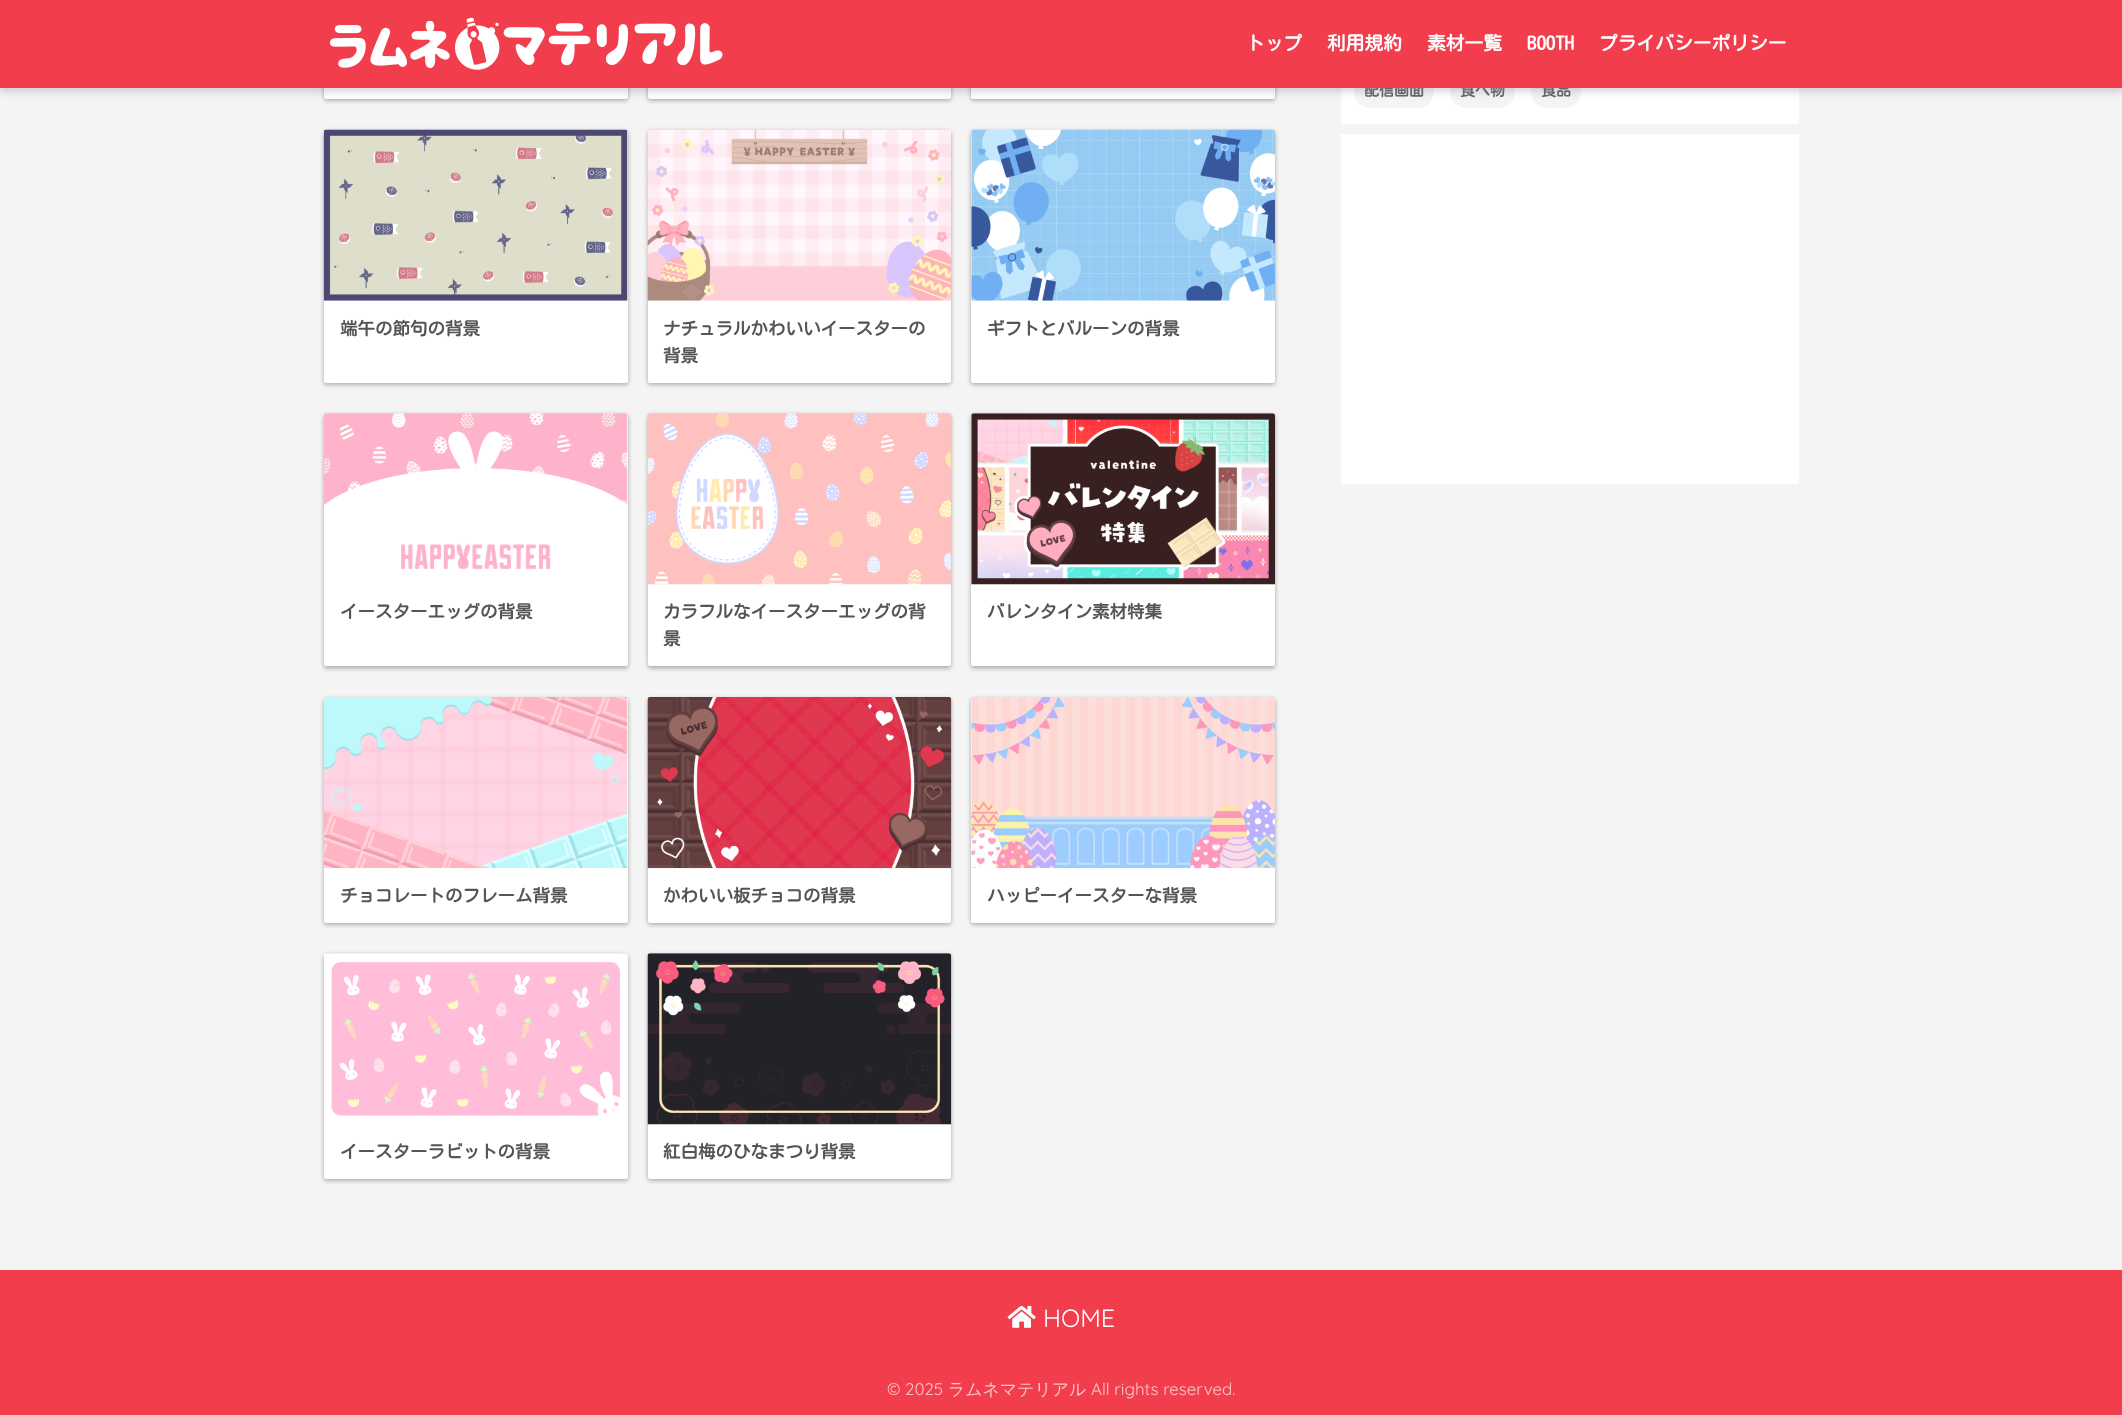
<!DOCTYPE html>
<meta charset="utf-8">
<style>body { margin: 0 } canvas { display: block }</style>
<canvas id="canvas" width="2122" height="1415"></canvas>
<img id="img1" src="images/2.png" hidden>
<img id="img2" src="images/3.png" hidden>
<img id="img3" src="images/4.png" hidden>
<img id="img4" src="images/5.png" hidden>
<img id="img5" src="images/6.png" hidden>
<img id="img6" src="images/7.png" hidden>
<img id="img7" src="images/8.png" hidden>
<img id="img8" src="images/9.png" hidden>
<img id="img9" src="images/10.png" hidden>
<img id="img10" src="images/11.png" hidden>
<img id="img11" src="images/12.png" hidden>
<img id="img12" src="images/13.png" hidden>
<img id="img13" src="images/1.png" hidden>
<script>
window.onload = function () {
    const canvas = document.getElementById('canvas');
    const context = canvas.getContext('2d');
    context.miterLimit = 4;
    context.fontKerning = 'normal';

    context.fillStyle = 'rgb(244, 244, 244)';
    context.fillRect(0, 0, 2122, 1415);
    context.fillStyle = 'rgb(255, 255, 255)';
    context.fillRect(1341, 88, 458, 36);
    context.fillStyle = 'rgb(244, 244, 244)';
    context.beginPath();
    context.roundRect(1354, 75, 80, 33, 16.5);
    context.fill();
    context.beginPath();
    context.roundRect(1450, 75, 65, 33, 16.5);
    context.fill();
    context.beginPath();
    context.roundRect(1531, 75, 50, 33, 16.5);
    context.fill();
    context.fillStyle = 'rgba(0, 0, 0, 0.22)';
    context.filter = 'blur(2px)';
    context.beginPath();
    context.roundRect(324, -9, 304, 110, 2.5);
    context.fill();
    context.filter = 'none';
    context.fillStyle = 'rgba(0, 0, 0, 0.12)';
    context.filter = 'blur(2px)';
    context.beginPath();
    context.roundRect(324, -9, 304, 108, 2.5);
    context.fill();
    context.filter = 'none';
    context.fillStyle = 'rgb(255, 255, 255)';
    context.beginPath();
    context.roundRect(324, -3, 304, 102, 2.5);
    context.fill();
    context.fillStyle = 'rgba(0, 0, 0, 0.22)';
    context.filter = 'blur(2px)';
    context.beginPath();
    context.roundRect(648, -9, 303, 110, 2.5);
    context.fill();
    context.filter = 'none';
    context.fillStyle = 'rgba(0, 0, 0, 0.12)';
    context.filter = 'blur(2px)';
    context.beginPath();
    context.roundRect(648, -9, 303, 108, 2.5);
    context.fill();
    context.filter = 'none';
    context.fillStyle = 'rgb(255, 255, 255)';
    context.beginPath();
    context.roundRect(648, -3, 303, 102, 2.5);
    context.fill();
    context.fillStyle = 'rgba(0, 0, 0, 0.22)';
    context.filter = 'blur(2px)';
    context.beginPath();
    context.roundRect(971, -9, 304, 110, 2.5);
    context.fill();
    context.filter = 'none';
    context.fillStyle = 'rgba(0, 0, 0, 0.12)';
    context.filter = 'blur(2px)';
    context.beginPath();
    context.roundRect(971, -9, 304, 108, 2.5);
    context.fill();
    context.filter = 'none';
    context.fillStyle = 'rgb(255, 255, 255)';
    context.beginPath();
    context.roundRect(971, -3, 304, 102, 2.5);
    context.fill();
    context.fillStyle = 'rgba(0, 0, 0, 0.18)';
    context.filter = 'blur(4px)';
    context.beginPath();
    context.rect(0, 4, 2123, 87);
    context.fill();
    context.filter = 'none';
    context.fillStyle = 'rgb(255, 255, 255)';
    context.fillRect(1341, 134, 458, 350);
    context.fillStyle = 'rgba(0, 0, 0, 0.22)';
    context.filter = 'blur(2px)';
    context.beginPath();
    context.roundRect(324, 133, 304, 252, 2.5);
    context.fill();
    context.filter = 'none';
    context.fillStyle = 'rgba(0, 0, 0, 0.12)';
    context.filter = 'blur(2px)';
    context.beginPath();
    context.roundRect(324, 130, 304, 253, 2.5);
    context.fill();
    context.filter = 'none';
    context.fillStyle = 'rgb(255, 255, 255)';
    context.beginPath();
    context.roundRect(324, 130, 304, 253, 2.5);
    context.fill();
    context.drawImage(document.getElementById('img1'), 323, 129, 305, 172);
    context.fillStyle = 'rgba(0, 0, 0, 0.22)';
    context.filter = 'blur(2px)';
    context.beginPath();
    context.roundRect(648, 133, 303, 252, 2.5);
    context.fill();
    context.filter = 'none';
    context.fillStyle = 'rgba(0, 0, 0, 0.12)';
    context.filter = 'blur(2px)';
    context.beginPath();
    context.roundRect(648, 130, 303, 253, 2.5);
    context.fill();
    context.filter = 'none';
    context.fillStyle = 'rgb(255, 255, 255)';
    context.beginPath();
    context.roundRect(648, 130, 303, 253, 2.5);
    context.fill();
    context.drawImage(document.getElementById('img2'), 647, 129, 304, 172);
    context.fillStyle = 'rgba(0, 0, 0, 0.22)';
    context.filter = 'blur(2px)';
    context.beginPath();
    context.roundRect(971, 133, 304, 252, 2.5);
    context.fill();
    context.filter = 'none';
    context.fillStyle = 'rgba(0, 0, 0, 0.12)';
    context.filter = 'blur(2px)';
    context.beginPath();
    context.roundRect(971, 130, 304, 253, 2.5);
    context.fill();
    context.filter = 'none';
    context.fillStyle = 'rgb(255, 255, 255)';
    context.beginPath();
    context.roundRect(971, 130, 304, 253, 2.5);
    context.fill();
    context.drawImage(document.getElementById('img3'), 971, 129, 304, 172);
    context.fillStyle = 'rgba(0, 0, 0, 0.22)';
    context.filter = 'blur(2px)';
    context.beginPath();
    context.roundRect(324, 416, 304, 253, 2.5);
    context.fill();
    context.filter = 'none';
    context.fillStyle = 'rgba(0, 0, 0, 0.12)';
    context.filter = 'blur(2px)';
    context.beginPath();
    context.roundRect(324, 414, 304, 252, 2.5);
    context.fill();
    context.filter = 'none';
    context.fillStyle = 'rgb(255, 255, 255)';
    context.beginPath();
    context.roundRect(324, 414, 304, 252, 2.5);
    context.fill();
    context.drawImage(document.getElementById('img4'), 324, 413, 304, 157);
    context.fillStyle = 'rgba(0, 0, 0, 0.22)';
    context.filter = 'blur(2px)';
    context.beginPath();
    context.roundRect(648, 416, 303, 253, 2.5);
    context.fill();
    context.filter = 'none';
    context.fillStyle = 'rgba(0, 0, 0, 0.12)';
    context.filter = 'blur(2px)';
    context.beginPath();
    context.roundRect(648, 414, 303, 252, 2.5);
    context.fill();
    context.filter = 'none';
    context.fillStyle = 'rgb(255, 255, 255)';
    context.beginPath();
    context.roundRect(648, 414, 303, 252, 2.5);
    context.fill();
    context.drawImage(document.getElementById('img5'), 647, 413, 304, 172);
    context.fillStyle = 'rgba(0, 0, 0, 0.22)';
    context.filter = 'blur(2px)';
    context.beginPath();
    context.roundRect(971, 416, 304, 253, 2.5);
    context.fill();
    context.filter = 'none';
    context.fillStyle = 'rgba(0, 0, 0, 0.12)';
    context.filter = 'blur(2px)';
    context.beginPath();
    context.roundRect(971, 414, 304, 252, 2.5);
    context.fill();
    context.filter = 'none';
    context.fillStyle = 'rgb(255, 255, 255)';
    context.beginPath();
    context.roundRect(971, 414, 304, 252, 2.5);
    context.fill();
    context.drawImage(document.getElementById('img6'), 971, 413, 304, 172);
    context.fillStyle = 'rgba(0, 0, 0, 0.22)';
    context.filter = 'blur(2px)';
    context.beginPath();
    context.roundRect(324, 700, 304, 225, 2.5);
    context.fill();
    context.filter = 'none';
    context.fillStyle = 'rgba(0, 0, 0, 0.12)';
    context.filter = 'blur(2px)';
    context.beginPath();
    context.roundRect(324, 698, 304, 225, 2.5);
    context.fill();
    context.filter = 'none';
    context.fillStyle = 'rgb(255, 255, 255)';
    context.beginPath();
    context.roundRect(324, 698, 304, 225, 2.5);
    context.fill();
    context.drawImage(document.getElementById('img7'), 324, 697, 304, 172);
    context.fillStyle = 'rgba(0, 0, 0, 0.22)';
    context.filter = 'blur(2px)';
    context.beginPath();
    context.roundRect(648, 700, 303, 225, 2.5);
    context.fill();
    context.filter = 'none';
    context.fillStyle = 'rgba(0, 0, 0, 0.12)';
    context.filter = 'blur(2px)';
    context.beginPath();
    context.roundRect(648, 698, 303, 225, 2.5);
    context.fill();
    context.filter = 'none';
    context.fillStyle = 'rgb(255, 255, 255)';
    context.beginPath();
    context.roundRect(648, 698, 303, 225, 2.5);
    context.fill();
    context.drawImage(document.getElementById('img8'), 647, 697, 305, 172);
    context.fillStyle = 'rgba(0, 0, 0, 0.22)';
    context.filter = 'blur(2px)';
    context.beginPath();
    context.roundRect(971, 700, 304, 225, 2.5);
    context.fill();
    context.filter = 'none';
    context.fillStyle = 'rgba(0, 0, 0, 0.12)';
    context.filter = 'blur(2px)';
    context.beginPath();
    context.roundRect(971, 698, 304, 225, 2.5);
    context.fill();
    context.filter = 'none';
    context.fillStyle = 'rgb(255, 255, 255)';
    context.beginPath();
    context.roundRect(971, 698, 304, 225, 2.5);
    context.fill();
    context.drawImage(document.getElementById('img9'), 971, 697, 304, 172);
    context.fillStyle = 'rgba(0, 0, 0, 0.22)';
    context.filter = 'blur(2px)';
    context.beginPath();
    context.roundRect(324, 956, 304, 225, 2.5);
    context.fill();
    context.filter = 'none';
    context.fillStyle = 'rgba(0, 0, 0, 0.12)';
    context.filter = 'blur(2px)';
    context.beginPath();
    context.roundRect(324, 954, 304, 225, 2.5);
    context.fill();
    context.filter = 'none';
    context.fillStyle = 'rgb(255, 255, 255)';
    context.beginPath();
    context.roundRect(324, 954, 304, 225, 2.5);
    context.fill();
    context.drawImage(document.getElementById('img10'), 324, 953, 303, 163);
    context.fillStyle = 'rgba(0, 0, 0, 0.22)';
    context.filter = 'blur(2px)';
    context.beginPath();
    context.roundRect(648, 956, 303, 225, 2.5);
    context.fill();
    context.filter = 'none';
    context.fillStyle = 'rgba(0, 0, 0, 0.12)';
    context.filter = 'blur(2px)';
    context.beginPath();
    context.roundRect(648, 954, 303, 225, 2.5);
    context.fill();
    context.filter = 'none';
    context.fillStyle = 'rgb(255, 255, 255)';
    context.beginPath();
    context.roundRect(648, 954, 303, 225, 2.5);
    context.fill();
    context.drawImage(document.getElementById('img11'), 647, 953, 305, 172);
    context.fillStyle = 'rgb(242, 61, 76)';
    context.fillRect(0, 1270, 2122, 145);
    context.drawImage(document.getElementById('img12'), 1007, 1305, 29, 23);
    context.font = 'bold 15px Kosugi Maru';
    context.fillStyle = 'rgb(102, 102, 102)';
    context.fillText('配信画面', 1364, 96);
    context.fillText('食べ物', 1460, 96);
    context.fillText('食品', 1541, 96);
    context.fillStyle = 'rgb(242, 61, 76)';
    context.fillRect(0, 0, 2122, 88);
    context.font = 'bold 18.75px Kosugi Maru';
    context.fillStyle = 'rgb(255, 255, 255)';
    context.fillText('プライバシーポリシー', 1599, 50);
    context.fillText('BOOTH', 1527, 50);
    context.fillText('素材一覧', 1427, 50);
    context.fillText('利用規約', 1327, 50);
    context.fillText('トップ', 1246, 50);
    context.drawImage(document.getElementById('img13'), 330, 17, 393, 53);
    context.font = 'bold 17.5px Kosugi Maru';
    context.fillStyle = 'rgb(85, 85, 85)';
    context.fillText('端午の節句の背景', 340, 335);
    context.fillText('ナチュラルかわいいイースターの', 663, 335);
    context.fillText('背景', 663, 362);
    context.fillText('ギフトとバルーンの背景', 987, 335);
    context.fillText('イースターエッグの背景', 340, 618);
    context.fillText('カラフルなイースターエッグの背', 663, 618);
    context.fillText('景', 663, 645);
    context.fillText('バレンタイン素材特集', 987, 618);
    context.fillText('チョコレートのフレーム背景', 340, 902);
    context.fillText('かわいい板チョコの背景', 663, 902);
    context.fillText('ハッピーイースターな背景', 987, 902);
    context.fillText('イースターラビットの背景', 340, 1158);
    context.fillText('紅白梅のひなまつり背景', 663, 1158);
    context.font = '25px Quicksand';
    context.fillStyle = 'rgb(255, 255, 255)';
    context.fillText('HOME', 1043, 1327);
    context.font = '16.9px Quicksand';
    context.fillStyle = 'rgb(251, 197, 201)';
    context.fillText('© 2025', 887, 1395);
    context.font = '500 16.9px WenQuanYi Zen Hei';
    context.fillText('ラムネマテリアル', 948, 1395);
    context.font = '16.9px Quicksand';
    context.fillText('All rights reserved.', 1091, 1395);
};
</script>
